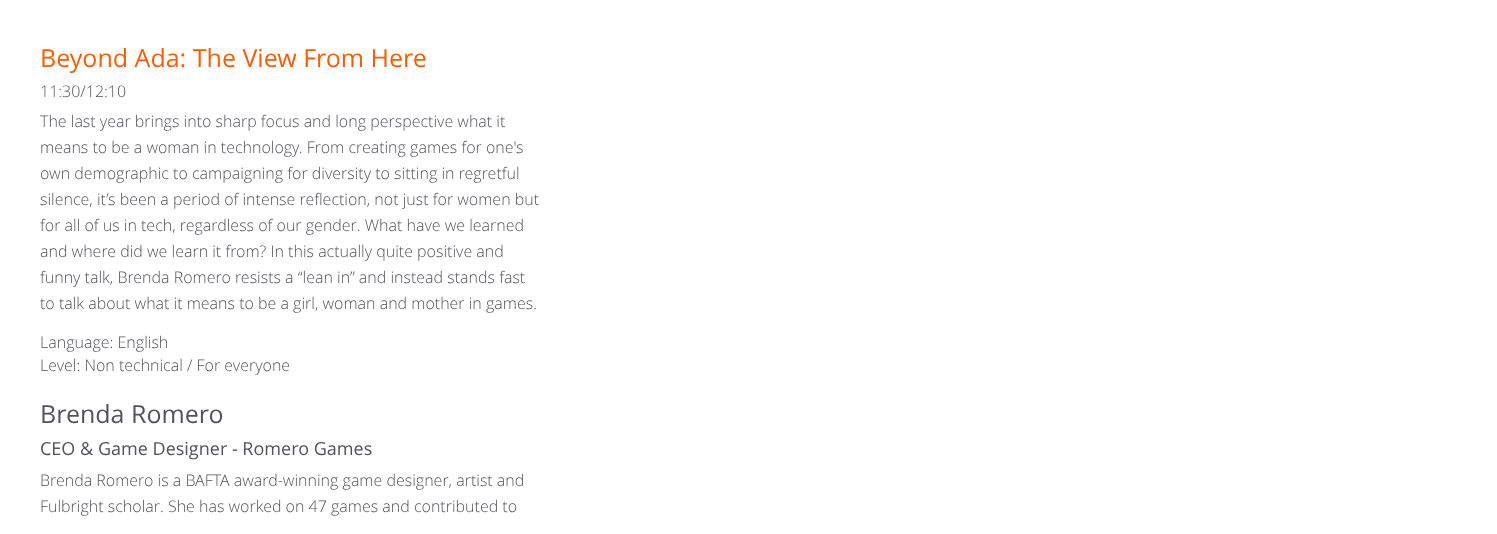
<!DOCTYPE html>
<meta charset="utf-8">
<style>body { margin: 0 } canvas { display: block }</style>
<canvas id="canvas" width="1497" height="534"></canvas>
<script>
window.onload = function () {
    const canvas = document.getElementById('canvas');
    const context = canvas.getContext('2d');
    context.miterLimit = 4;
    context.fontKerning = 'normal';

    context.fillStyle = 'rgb(255, 255, 255)';
    context.fillRect(0, 0, 1497, 534);
    context.font = '25px Open Sans';
    context.fillStyle = 'rgb(255, 92, 0)';
    context.fillText('Beyond Ada: The View From Here', 40, 67);
    context.font = '300 16px Open Sans';
    context.fillStyle = 'rgb(82, 82, 96)';
    context.fillText('11:30/12:10', 40, 97);
    context.fillText('The last year brings into sharp focus and long perspective what it', 40, 127);
    context.fillText('means to be a woman in technology. From creating games for one\'s', 40, 153);
    context.fillText('own demographic to campaigning for diversity to sitting in regretful', 40, 179);
    context.fillText('silence, it’s been a period of intense reflection, not just for women but', 40, 205);
    context.fillText('for all of us in tech, regardless of our gender. What have we learned', 40, 231);
    context.fillText('and where did we learn it from? In this actually quite positive and', 40, 257);
    context.fillText('funny talk, Brenda Romero resists a “lean in” and instead stands fast', 40, 283);
    context.fillText('to talk about what it means to be a girl, woman and mother in games.', 40, 309);
    context.fillText('Language: English', 40, 348);
    context.fillText('Level: Non technical / For everyone', 40, 371);
    context.font = '25px Open Sans';
    context.fillText('Brenda Romero', 40, 423);
    context.font = '18px Open Sans';
    context.fillText('CEO & Game Designer - Romero Games', 40, 455);
    context.font = '300 16px Open Sans';
    context.fillText('Brenda Romero is a BAFTA award-winning game designer, artist and', 40, 486);
    context.fillText('Fulbright scholar. She has worked on 47 games and contributed to', 40, 512);
};
</script>
